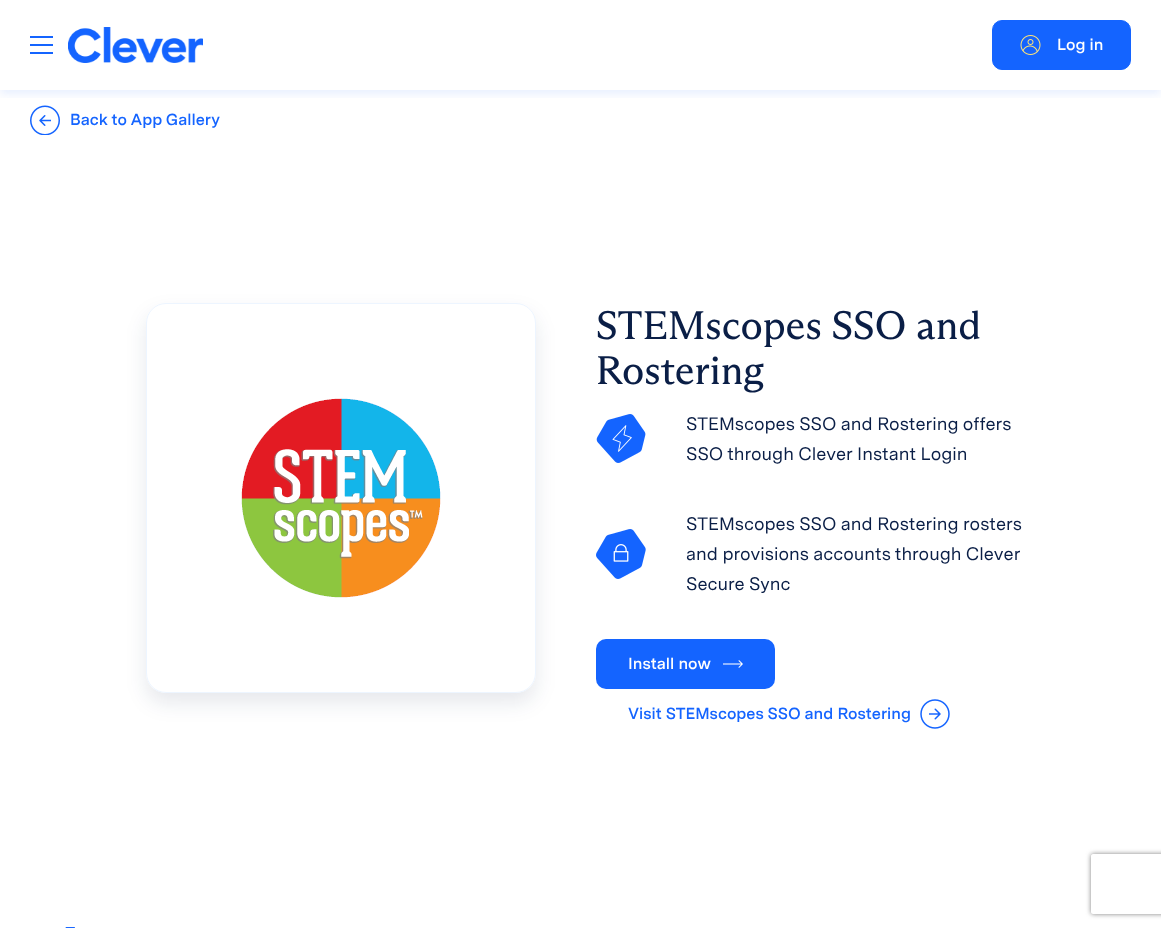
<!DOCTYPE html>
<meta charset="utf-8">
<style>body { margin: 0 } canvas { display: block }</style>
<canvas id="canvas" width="1161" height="928"></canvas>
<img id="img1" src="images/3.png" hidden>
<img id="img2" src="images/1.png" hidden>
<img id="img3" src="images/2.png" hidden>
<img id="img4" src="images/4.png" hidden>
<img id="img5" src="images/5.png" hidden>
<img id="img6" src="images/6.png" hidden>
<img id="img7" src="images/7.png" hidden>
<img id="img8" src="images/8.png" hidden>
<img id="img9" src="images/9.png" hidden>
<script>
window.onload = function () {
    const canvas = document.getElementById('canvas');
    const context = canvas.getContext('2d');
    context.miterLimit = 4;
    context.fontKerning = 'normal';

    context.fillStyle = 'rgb(255, 255, 255)';
    context.fillRect(0, 0, 1161, 928);
    context.drawImage(document.getElementById('img1'), 30, 105, 30, 30);
    context.save();
    context.beginPath();
    context.rect(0, 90, 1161, 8);
    context.clip();
    context.fillStyle = 'rgba(20, 100, 255, 0.1)';
    context.filter = 'blur(5px)';
    context.beginPath();
    context.rect(0, 4, 1161, 90);
    context.fill();
    context.filter = 'none';
    context.restore();
    context.fillStyle = 'rgb(20, 100, 255)';
    context.fillRect(30, 44, 23, 2);
    context.fillRect(30, 36, 23, 2);
    context.fillRect(30, 52, 23, 2);
    context.drawImage(document.getElementById('img2'), 68, 27, 135, 36);
    context.beginPath();
    context.roundRect(992.5, 20.5, 138, 49, 9.5);
    context.fill();
    context.strokeStyle = 'rgb(20, 100, 255)';
    context.stroke();
    context.drawImage(document.getElementById('img3'), 1020, 35, 21, 20);
    context.save();
    context.beginPath();
    context.moveTo(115, 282);
    context.lineTo(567, 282);
    context.lineTo(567, 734);
    context.lineTo(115, 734);
    context.closePath();
    context.moveTo(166, 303);
    context.lineTo(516, 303);
    context.bezierCurveTo(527, 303, 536, 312, 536, 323);
    context.lineTo(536, 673);
    context.bezierCurveTo(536, 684, 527, 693, 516, 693);
    context.lineTo(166, 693);
    context.bezierCurveTo(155, 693, 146, 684, 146, 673);
    context.lineTo(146, 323);
    context.bezierCurveTo(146, 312, 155, 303, 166, 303);
    context.closePath();
    context.clip('evenodd');
    context.fillStyle = 'rgba(10, 30, 70, 0.1)';
    context.filter = 'blur(10px)';
    context.beginPath();
    context.roundRect(146, 313, 390, 390, 20);
    context.fill();
    context.filter = 'none';
    context.restore();
    context.beginPath();
    context.roundRect(146.5, 303.5, 389, 389, 19.5);
    context.strokeStyle = 'rgb(237, 245, 255)';
    context.stroke();
    context.drawImage(document.getElementById('img4'), 241, 398, 200, 200);
    context.drawImage(document.getElementById('img5'), 596, 414, 50, 49);
    context.drawImage(document.getElementById('img6'), 596, 529, 50, 50);
    context.beginPath();
    context.roundRect(596, 639, 179, 50, 10);
    context.fill();
    context.drawImage(document.getElementById('img7'), 723, 660, 20, 8);
    context.drawImage(document.getElementById('img8'), 920, 699, 30, 30);
    context.save();
    context.beginPath();
    context.moveTo(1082, 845);
    context.lineTo(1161, 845);
    context.lineTo(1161, 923);
    context.lineTo(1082, 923);
    context.closePath();
    context.moveTo(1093, 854);
    context.lineTo(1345, 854);
    context.bezierCurveTo(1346, 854, 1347, 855, 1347, 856);
    context.lineTo(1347, 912);
    context.bezierCurveTo(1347, 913, 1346, 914, 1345, 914);
    context.lineTo(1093, 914);
    context.bezierCurveTo(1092, 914, 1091, 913, 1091, 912);
    context.lineTo(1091, 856);
    context.bezierCurveTo(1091, 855, 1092, 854, 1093, 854);
    context.closePath();
    context.clip('evenodd');
    context.fillStyle = 'rgb(128, 128, 128)';
    context.filter = 'blur(2.5px)';
    context.beginPath();
    context.roundRect(1091, 854, 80, 60, 2);
    context.fill();
    context.filter = 'none';
    context.restore();
    context.drawImage(document.getElementById('img9'), 65, 927, 10, 1);
    context.font = '600 16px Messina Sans';
    context.fillStyle = 'rgb(255, 255, 255)';
    context.fillText('Log in', 1057, 50);
    context.fillStyle = 'rgb(20, 100, 255)';
    context.fillText('Back to App Gallery', 70, 125);
    context.font = '40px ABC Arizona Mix';
    context.fillStyle = 'rgb(10, 30, 70)';
    context.fillText('STEMscopes SSO and', 596, 339);
    context.fillText('Rostering', 596, 384);
    context.font = '18px Messina Sans';
    context.fillText('STEMscopes SSO and Rostering offers', 686, 430);
    context.fillText('SSO through Clever Instant Login', 686, 460);
    context.fillText('STEMscopes SSO and Rostering rosters', 686, 530);
    context.fillText('and provisions accounts through Clever', 686, 560);
    context.fillText('Secure Sync', 686, 590);
    context.font = '600 16px Messina Sans';
    context.fillStyle = 'rgb(255, 255, 255)';
    context.fillText('Install now', 628, 669);
    context.fillStyle = 'rgb(20, 100, 255)';
    context.fillText('Visit STEMscopes SSO and Rostering', 628, 719);
};
</script>
